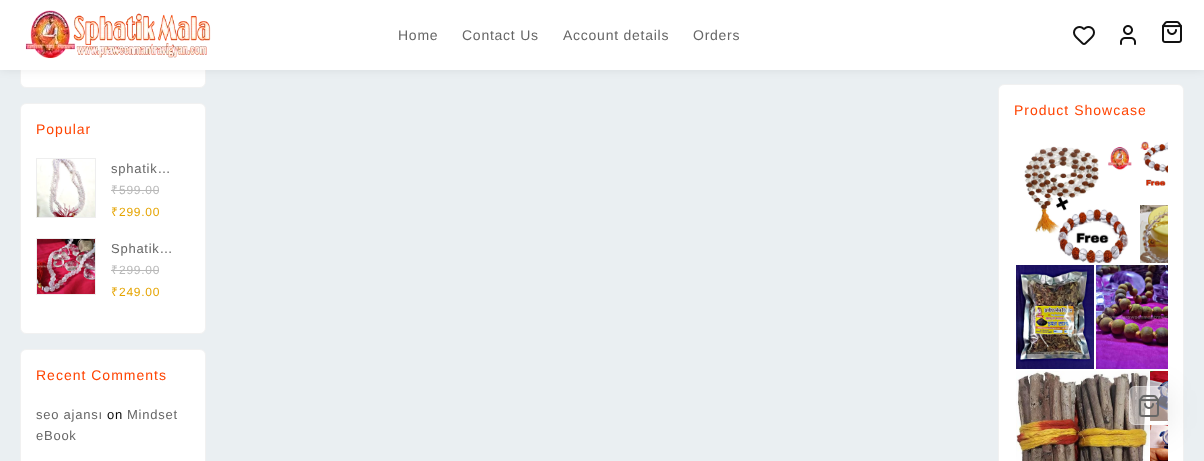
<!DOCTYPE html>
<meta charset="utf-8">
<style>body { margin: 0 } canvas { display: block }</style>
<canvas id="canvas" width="1204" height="461"></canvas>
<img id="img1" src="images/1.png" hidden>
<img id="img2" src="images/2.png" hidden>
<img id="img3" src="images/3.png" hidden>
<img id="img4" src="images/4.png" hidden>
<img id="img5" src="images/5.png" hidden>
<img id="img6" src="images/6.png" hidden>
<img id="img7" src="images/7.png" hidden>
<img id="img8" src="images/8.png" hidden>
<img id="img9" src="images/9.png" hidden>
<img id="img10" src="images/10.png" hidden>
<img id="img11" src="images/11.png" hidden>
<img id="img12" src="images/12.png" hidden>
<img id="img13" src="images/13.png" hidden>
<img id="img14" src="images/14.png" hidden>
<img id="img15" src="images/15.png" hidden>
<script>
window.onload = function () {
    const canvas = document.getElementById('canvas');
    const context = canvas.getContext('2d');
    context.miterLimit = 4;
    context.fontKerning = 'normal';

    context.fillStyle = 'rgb(234, 239, 242)';
    context.fillRect(0, 0, 1204, 461);
    context.fillStyle = 'rgb(255, 255, 255)';
    context.beginPath();
    context.roundRect(998.5, 84.5, 185, 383, 5.5);
    context.fill();
    context.strokeStyle = 'rgb(241, 241, 241)';
    context.stroke();
    context.beginPath();
    context.roundRect(20.5, -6.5, 185, 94, 5.5);
    context.fill();
    context.stroke();
    context.fillStyle = 'rgba(0, 0, 0, 0.08)';
    context.filter = 'blur(5px)';
    context.beginPath();
    context.rect(0, 0, 1204, 70);
    context.fill();
    context.filter = 'none';
    context.fillStyle = 'rgb(255, 255, 255)';
    context.fillRect(0, 0, 1204, 70);
    context.drawImage(document.getElementById('img1'), 25, 10, 186, 49);
    context.drawImage(document.getElementById('img2'), 1073, 26, 22, 19);
    context.drawImage(document.getElementById('img3'), 1120, 25, 16, 20);
    context.drawImage(document.getElementById('img4'), 1162, 21, 20, 22);
    context.drawImage(document.getElementById('img5'), 1024, 146, 108, 117);
    context.drawImage(document.getElementById('img6'), 1140, 141, 28, 45);
    context.drawImage(document.getElementById('img7'), 1140, 205, 28, 58);
    context.drawImage(document.getElementById('img8'), 1016, 265, 78, 104);
    context.drawImage(document.getElementById('img9'), 1096, 265, 72, 104);
    context.drawImage(document.getElementById('img10'), 1016, 371, 133, 90);
    context.drawImage(document.getElementById('img11'), 1150, 371, 18, 50);
    context.drawImage(document.getElementById('img12'), 1150, 425, 18, 36);
    context.beginPath();
    context.roundRect(20.5, 103.5, 185, 230, 5.5);
    context.fill();
    context.stroke();
    context.strokeStyle = 'rgb(238, 238, 238)';
    context.strokeRect(36.5, 158.5, 59, 59);
    context.drawImage(document.getElementById('img13'), 37, 159, 58, 58);
    context.fillStyle = 'rgb(184, 184, 184)';
    context.fillRect(111, 190, 8, 1);
    context.fillRect(119, 190, 40, 1);
    context.strokeRect(36.5, 238.5, 59, 56);
    context.drawImage(document.getElementById('img14'), 37, 239, 58, 55);
    context.fillRect(111, 270, 8, 1);
    context.fillRect(119, 270, 40, 1);
    context.fillStyle = 'rgb(255, 255, 255)';
    context.beginPath();
    context.roundRect(20.5, 349.5, 185, 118, 5.5);
    context.fill();
    context.strokeStyle = 'rgb(241, 241, 241)';
    context.stroke();
    context.save();
    context.beginPath();
    context.moveTo(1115, 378);
    context.lineTo(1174, 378);
    context.lineTo(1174, 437);
    context.lineTo(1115, 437);
    context.closePath();
    context.moveTo(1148.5, 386);
    context.bezierCurveTo(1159.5, 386, 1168, 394.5, 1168, 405.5);
    context.bezierCurveTo(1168, 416.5, 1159.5, 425, 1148.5, 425);
    context.bezierCurveTo(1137.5, 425, 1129, 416.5, 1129, 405.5);
    context.bezierCurveTo(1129, 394.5, 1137.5, 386, 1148.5, 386);
    context.closePath();
    context.clip('evenodd');
    context.fillStyle = 'rgba(221, 221, 221, 0.1)';
    context.filter = 'blur(3px)';
    context.beginPath();
    context.roundRect(1125, 388, 39, 39, 19.5);
    context.fill();
    context.filter = 'none';
    context.restore();
    context.save();
    context.beginPath();
    context.moveTo(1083, 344);
    context.lineTo(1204, 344);
    context.lineTo(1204, 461);
    context.lineTo(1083, 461);
    context.closePath();
    context.moveTo(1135, 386);
    context.lineTo(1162, 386);
    context.bezierCurveTo(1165.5, 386, 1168, 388.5, 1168, 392);
    context.lineTo(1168, 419);
    context.bezierCurveTo(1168, 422.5, 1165.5, 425, 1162, 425);
    context.lineTo(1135, 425);
    context.bezierCurveTo(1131.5, 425, 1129, 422.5, 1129, 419);
    context.lineTo(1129, 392);
    context.bezierCurveTo(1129, 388.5, 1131.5, 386, 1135, 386);
    context.closePath();
    context.clip('evenodd');
    context.fillStyle = 'rgba(0, 0, 0, 0.1)';
    context.filter = 'blur(15px)';
    context.beginPath();
    context.roundRect(1129, 390, 39, 39, 6);
    context.fill();
    context.filter = 'none';
    context.restore();
    context.fillStyle = 'rgba(255, 255, 255, 0.44)';
    context.beginPath();
    context.roundRect(1129, 386, 39, 39, 6);
    context.fill();
    context.beginPath();
    context.roundRect(1129.5, 386.5, 38, 38, 5.5);
    context.strokeStyle = 'rgba(255, 255, 255, 0.27)';
    context.stroke();
    context.drawImage(document.getElementById('img15'), 1139, 395, 20, 22);
    context.letterSpacing = '0.75px';
    context.font = '14px Liberation Sans';
    context.fillStyle = 'rgb(102, 102, 102)';
    context.fillText('Home', 398, 40);
    context.fillText('Contact Us', 462, 40);
    context.fillText('Account details', 563, 40);
    context.fillText('Orders', 693, 40);
    context.letterSpacing = '1px';
    context.fillStyle = 'rgb(255, 67, 0)';
    context.fillText('Product Showcase', 1014, 115);
    context.fillText('Popular', 36, 134);
    context.letterSpacing = '0.75px';
    context.font = '13px Liberation Sans';
    context.fillStyle = 'rgb(102, 102, 102)';
    context.fillText('sphatik…', 111, 173);
    context.font = '12px Noto Sans';
    context.fillStyle = 'rgb(184, 184, 184)';
    context.fillText('₹', 111, 194);
    context.font = '12px Liberation Sans';
    context.fillText('599.00', 119, 194);
    context.font = '12px Noto Sans';
    context.fillStyle = 'rgb(229, 164, 0)';
    context.fillText('₹', 111, 216);
    context.font = '12px Liberation Sans';
    context.fillText('299.00', 119, 216);
    context.font = '13px Liberation Sans';
    context.fillStyle = 'rgb(102, 102, 102)';
    context.fillText('Sphatik…', 111, 253);
    context.font = '12px Noto Sans';
    context.fillStyle = 'rgb(184, 184, 184)';
    context.fillText('₹', 111, 274);
    context.font = '12px Liberation Sans';
    context.fillText('299.00', 119, 274);
    context.font = '12px Noto Sans';
    context.fillStyle = 'rgb(229, 164, 0)';
    context.fillText('₹', 111, 296);
    context.font = '12px Liberation Sans';
    context.fillText('249.00', 119, 296);
    context.letterSpacing = '1px';
    context.font = '14px Liberation Sans';
    context.fillStyle = 'rgb(255, 67, 0)';
    context.fillText('Recent Comments', 36, 380);
    context.letterSpacing = '0.75px';
    context.font = '13px Liberation Sans';
    context.fillStyle = 'rgb(102, 102, 102)';
    context.fillText('seo ajansı', 36, 419);
    context.fillStyle = 'rgb(10, 10, 10)';
    context.fillText('on', 107, 419);
    context.fillStyle = 'rgb(102, 102, 102)';
    context.fillText('Mindset', 127, 419);
    context.fillText('eBook', 36, 440);
};
</script>
